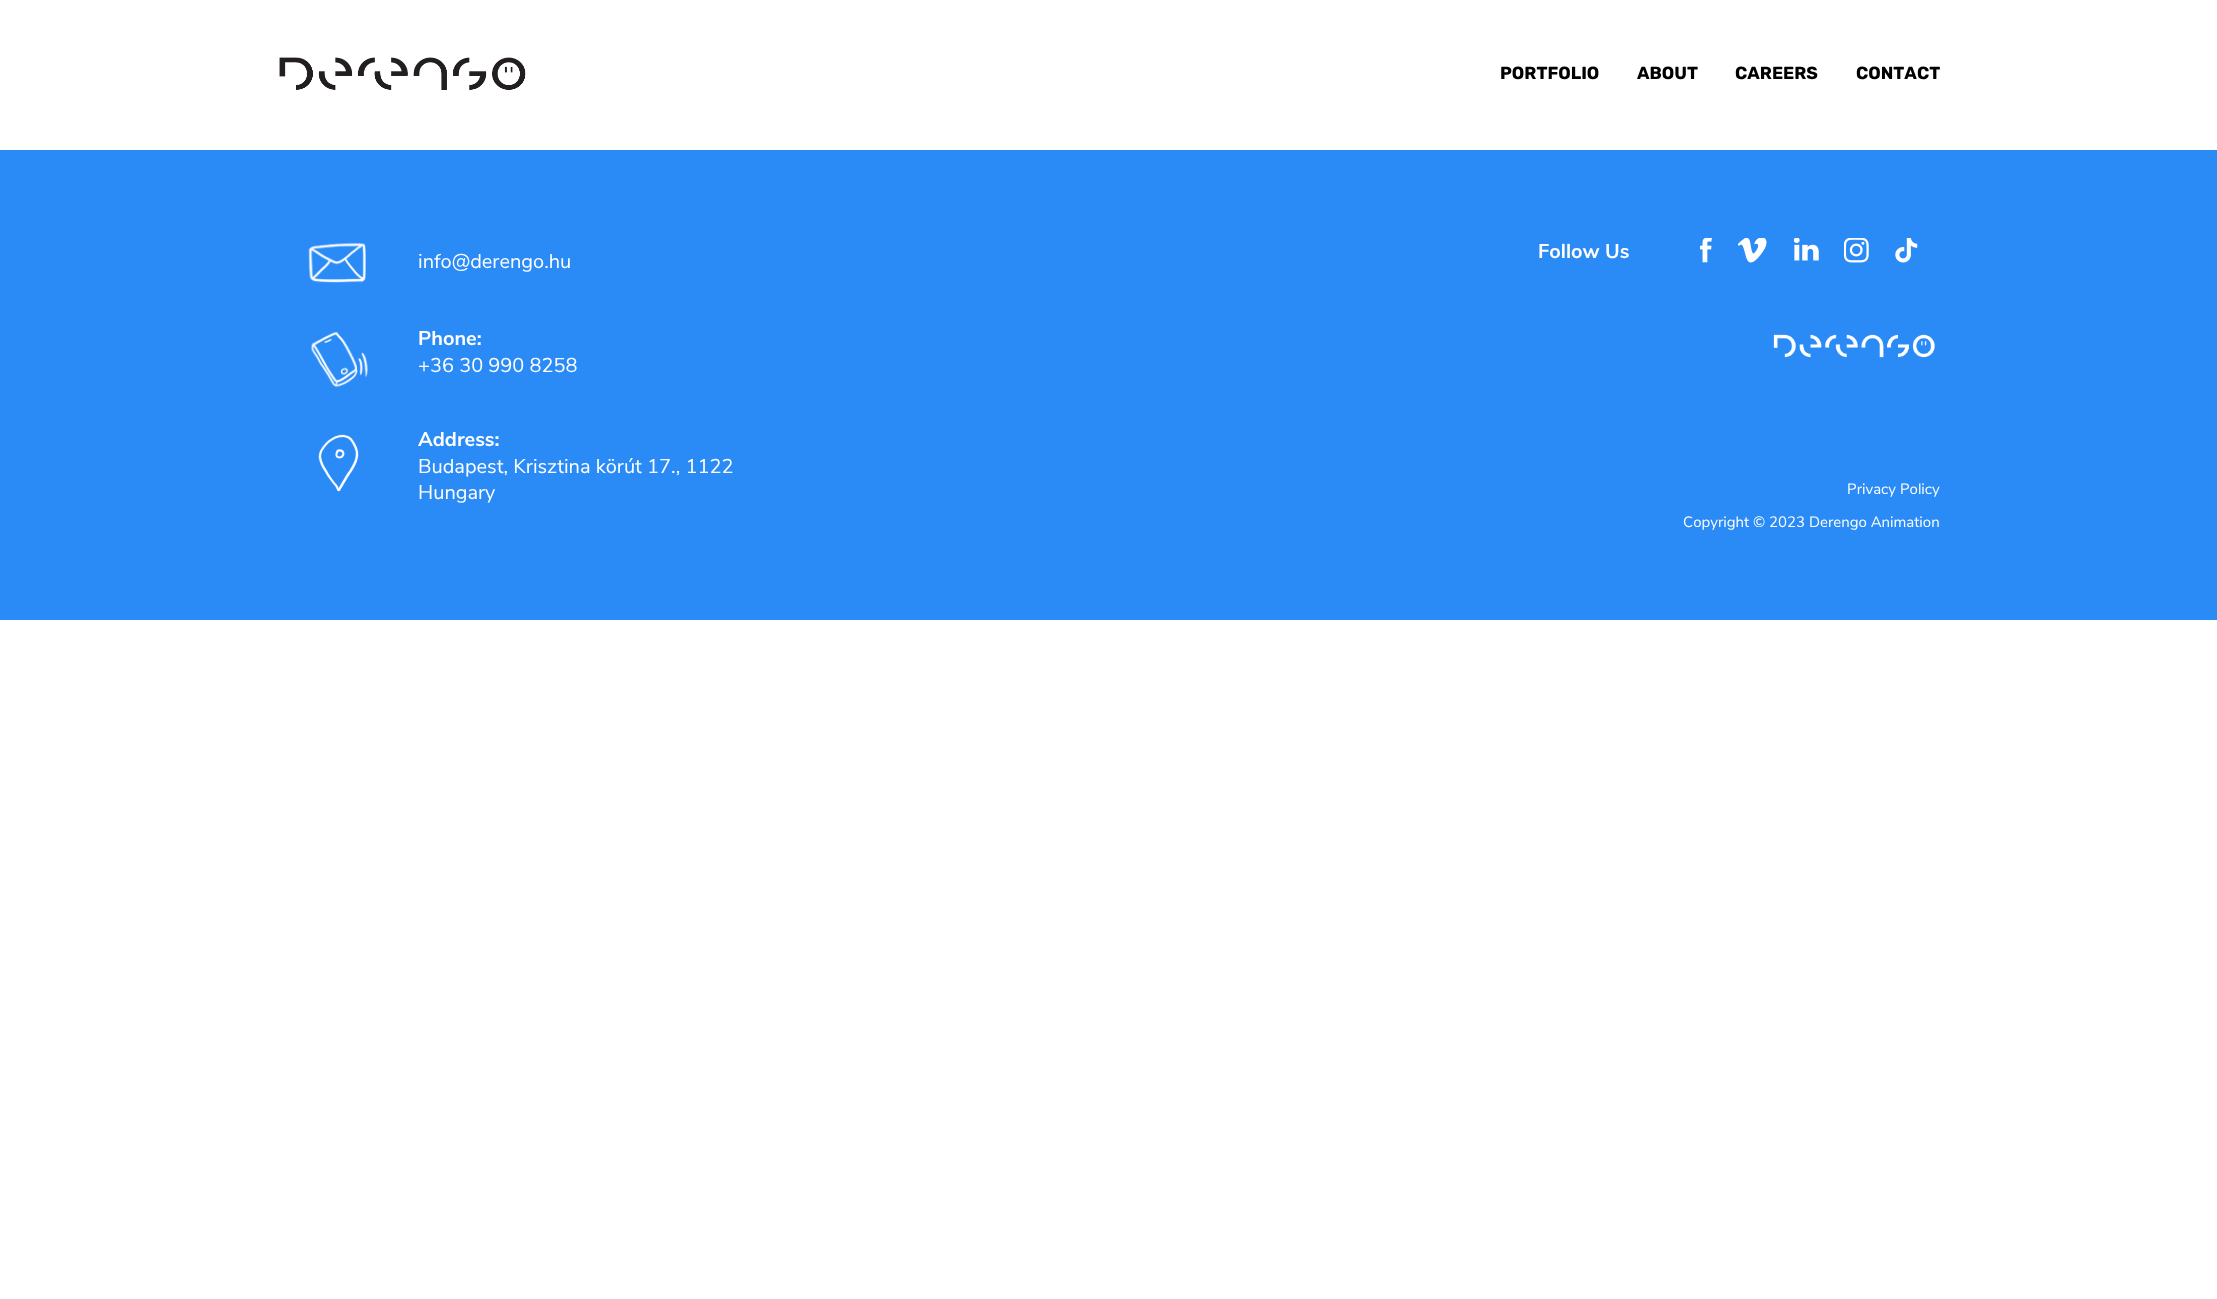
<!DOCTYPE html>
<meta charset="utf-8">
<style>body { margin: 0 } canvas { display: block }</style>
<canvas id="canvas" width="2217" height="1299"></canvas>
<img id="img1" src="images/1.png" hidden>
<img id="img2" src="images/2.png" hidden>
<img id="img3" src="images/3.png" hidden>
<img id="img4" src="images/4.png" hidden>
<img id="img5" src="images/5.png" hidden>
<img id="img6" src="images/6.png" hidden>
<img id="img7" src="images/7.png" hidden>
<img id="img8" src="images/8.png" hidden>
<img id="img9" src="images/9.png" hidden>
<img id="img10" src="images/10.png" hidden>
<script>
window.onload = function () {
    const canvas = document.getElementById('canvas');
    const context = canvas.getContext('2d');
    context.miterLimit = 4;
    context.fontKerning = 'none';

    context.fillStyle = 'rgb(255, 255, 255)';
    context.fillRect(0, 0, 2217, 1299);
    context.drawImage(document.getElementById('img1'), 279, 57, 247, 33);
    context.fillStyle = 'rgb(42, 139, 247)';
    context.fillRect(0, 150, 2217, 470);
    context.drawImage(document.getElementById('img2'), 308, 242, 58, 41);
    context.drawImage(document.getElementById('img3'), 1700, 238, 12, 25);
    context.drawImage(document.getElementById('img4'), 1738, 238, 29, 25);
    context.drawImage(document.getElementById('img5'), 1794, 238, 25, 23);
    context.drawImage(document.getElementById('img6'), 1844, 238, 25, 25);
    context.drawImage(document.getElementById('img7'), 1895, 238, 23, 25);
    context.drawImage(document.getElementById('img8'), 310, 332, 58, 55);
    context.drawImage(document.getElementById('img9'), 1773, 334, 162, 24);
    context.drawImage(document.getElementById('img10'), 318, 434, 41, 58);
    context.font = 'bold 17.5px Rubik';
    context.fillStyle = 'rgb(0, 0, 0)';
    context.fillText('PORTFOLIO', 1500, 79);
    context.fillText('ABOUT', 1637, 79);
    context.fillText('CAREERS', 1735, 79);
    context.fillText('CONTACT', 1856, 79);
    context.font = 'bold 20px Nunito Sans';
    context.fillStyle = 'rgb(255, 255, 255)';
    context.fillText('Follow Us', 1538, 258);
    context.font = '20px Nunito Sans';
    context.fillText('info@derengo.hu', 418, 268);
    context.font = 'bold 20px Nunito Sans';
    context.fillText('Phone:', 418, 345);
    context.font = '20px Nunito Sans';
    context.fillText('+36 30 990 8258', 418, 372);
    context.font = 'bold 20px Nunito Sans';
    context.fillText('Address:', 418, 446);
    context.font = '20px Nunito Sans';
    context.fillText('Budapest, Krisztina körút 17., 1122', 418, 473);
    context.fillText('Hungary', 418, 499);
    context.font = '15px Nunito Sans';
    context.fillText('Privacy Policy', 1847, 494);
    context.fillText('Copyright © 2023 Derengo Animation', 1683, 527);
};
</script>
